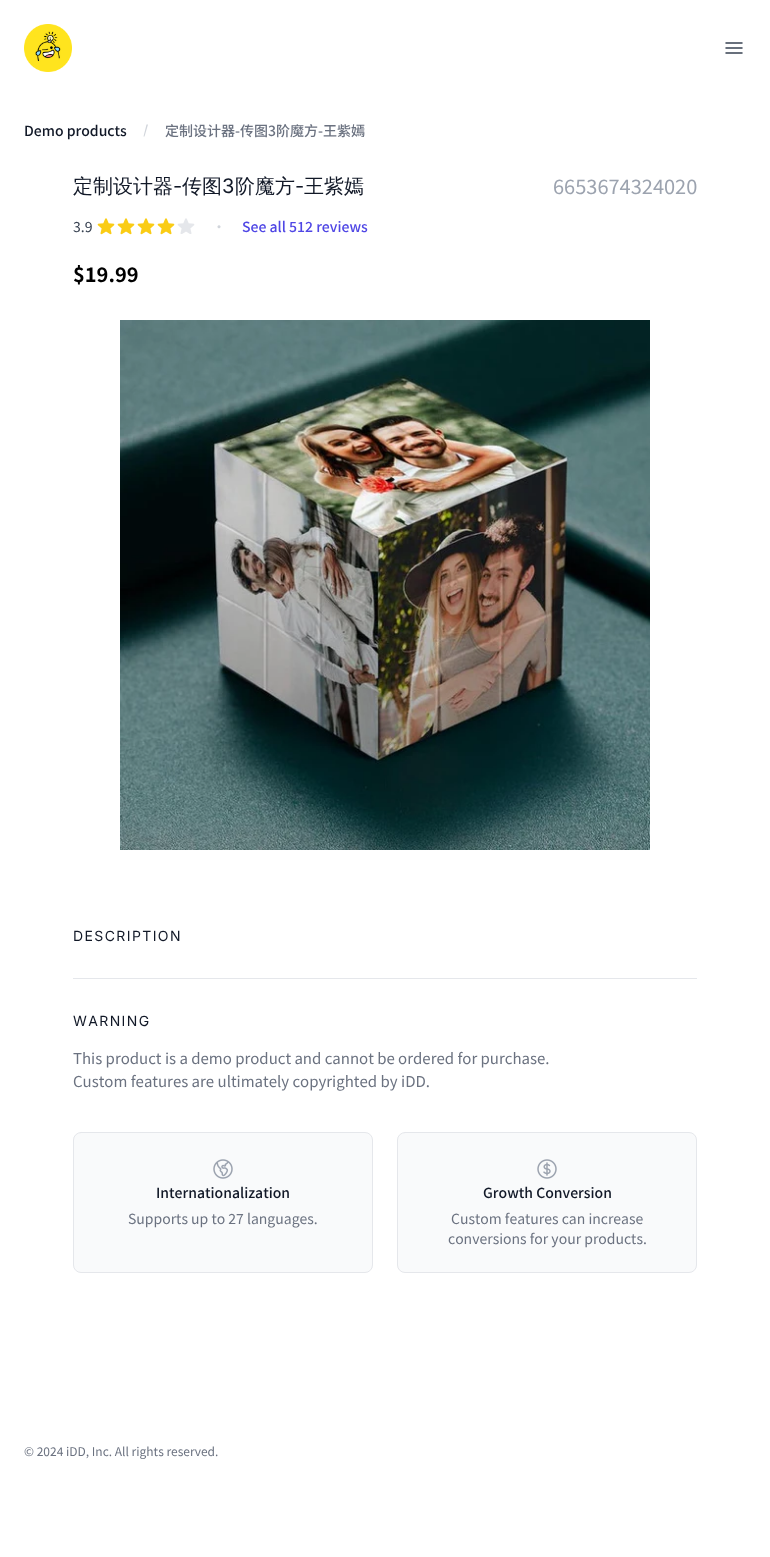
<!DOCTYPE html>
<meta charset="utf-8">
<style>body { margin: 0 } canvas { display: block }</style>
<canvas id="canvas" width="770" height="1557"></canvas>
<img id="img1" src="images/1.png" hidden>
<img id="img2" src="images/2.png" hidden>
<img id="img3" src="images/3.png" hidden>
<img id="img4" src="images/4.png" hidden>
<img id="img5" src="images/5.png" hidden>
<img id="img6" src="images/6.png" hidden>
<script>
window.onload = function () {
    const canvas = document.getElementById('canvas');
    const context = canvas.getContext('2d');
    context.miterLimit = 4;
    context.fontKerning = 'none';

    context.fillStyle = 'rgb(255, 255, 255)';
    context.fillRect(0, 0, 770, 1557);
    context.drawImage(document.getElementById('img1'), 24, 24, 48, 48);
    context.beginPath();
    context.moveTo(726, 43);
    context.lineTo(742, 43);
    context.moveTo(726, 48);
    context.lineTo(742, 48);
    context.moveTo(726, 53);
    context.lineTo(742, 53);
    context.strokeStyle = 'rgb(55, 65, 81)';
    context.lineWidth = 1.5;
    context.lineCap = 'round';
    context.lineJoin = 'round';
    context.stroke();
    context.fillStyle = 'rgb(209, 213, 219)';
    context.beginPath();
    context.moveTo(148, 124.5);
    context.lineTo(146.5, 124.5);
    context.lineTo(143.5, 136.5);
    context.lineTo(144.5, 136.5);
    context.closePath();
    context.fill();
    context.drawImage(document.getElementById('img2'), 97, 218, 18, 17);
    context.drawImage(document.getElementById('img2'), 117, 218, 18, 17);
    context.drawImage(document.getElementById('img2'), 137, 218, 18, 17);
    context.drawImage(document.getElementById('img2'), 157, 218, 18, 17);
    context.drawImage(document.getElementById('img3'), 177, 218, 18, 16);
    context.drawImage(document.getElementById('img4'), 120, 320, 530, 530);
    context.fillStyle = 'rgb(229, 231, 235)';
    context.fillRect(73, 978, 624, 1);
    context.fillStyle = 'rgb(249, 250, 251)';
    context.beginPath();
    context.roundRect(73.5, 1132.5, 299, 140, 7.5);
    context.fill();
    context.strokeStyle = 'rgb(229, 231, 235)';
    context.lineWidth = 1;
    context.lineJoin = 'miter';
    context.stroke();
    context.drawImage(document.getElementById('img5'), 213, 1159, 20, 20);
    context.beginPath();
    context.roundRect(397.5, 1132.5, 299, 140, 7.5);
    context.fill();
    context.stroke();
    context.drawImage(document.getElementById('img6'), 537, 1159, 20, 20);
    context.font = '500 14px Noto Sans SC';
    context.fillStyle = 'rgb(17, 24, 39)';
    context.fillText('Demo products', 24, 136);
    context.fillStyle = 'rgb(107, 114, 128)';
    context.fillText('定制设计器-传图3阶魔方-王紫嫣', 165, 136);
    context.font = '500 20px WenQuanYi Zen Hei';
    context.fillStyle = 'rgb(17, 24, 39)';
    context.fillText('定制设计器', 73, 193);
    context.font = '20px Inter';
    context.fillText('-', 173, 193);
    context.font = '500 20px WenQuanYi Zen Hei';
    context.fillText('传图', 182, 193);
    context.font = '20px Inter';
    context.fillText('3', 222, 193);
    context.font = '500 20px WenQuanYi Zen Hei';
    context.fillText('阶魔方', 235, 193);
    context.font = '20px Inter';
    context.fillText('-', 295, 193);
    context.font = '500 20px WenQuanYi Zen Hei';
    context.fillText('王紫嫣', 304, 193);
    context.font = '20px Noto Sans SC';
    context.fillStyle = 'rgb(156, 163, 175)';
    context.fillText('6653674324020', 553, 194);
    context.font = '14px Noto Sans SC';
    context.fillStyle = 'rgb(55, 65, 81)';
    context.fillText('3.9', 73, 232);
    context.fillStyle = 'rgb(209, 213, 219)';
    context.fillText('·', 212, 232);
    context.font = '500 14px Noto Sans SC';
    context.fillStyle = 'rgb(79, 70, 229)';
    context.fillText('See all 512 reviews', 242, 232);
    context.font = 'bold 20px Noto Sans SC';
    context.fillStyle = 'rgb(0, 0, 0)';
    context.fillText('$19.99', 73, 282);
    context.letterSpacing = '1.4px';
    context.font = '14px Inter';
    context.fillStyle = 'rgb(17, 24, 39)';
    context.fillText('DESCRIPTION', 73, 941);
    context.fillText('WARNING', 73, 1026);
    context.letterSpacing = '0px';
    context.font = '15px Noto Sans SC';
    context.fillStyle = 'rgb(107, 114, 128)';
    context.fillText('This product is a demo product and cannot be ordered for purchase.', 73, 1064);
    context.fillText('Custom features are ultimately copyrighted by', 73, 1087);
    context.fillText('iDD.', 401, 1087);
    context.font = '500 14px Noto Sans SC';
    context.fillStyle = 'rgb(17, 24, 39)';
    context.fillText('Internationalization', 156, 1198);
    context.font = '14px Noto Sans SC';
    context.fillStyle = 'rgb(107, 114, 128)';
    context.fillText('Supports up to 27 languages.', 128, 1224);
    context.font = '500 14px Noto Sans SC';
    context.fillStyle = 'rgb(17, 24, 39)';
    context.fillText('Growth Conversion', 483, 1198);
    context.font = '14px Noto Sans SC';
    context.fillStyle = 'rgb(107, 114, 128)';
    context.fillText('Custom features can increase', 451, 1224);
    context.fillText('conversions for your products.', 448, 1244);
    context.font = '12px Noto Sans SC';
    context.fillText('© 2024 iDD, Inc. All rights reserved.', 24, 1456);
};
</script>
